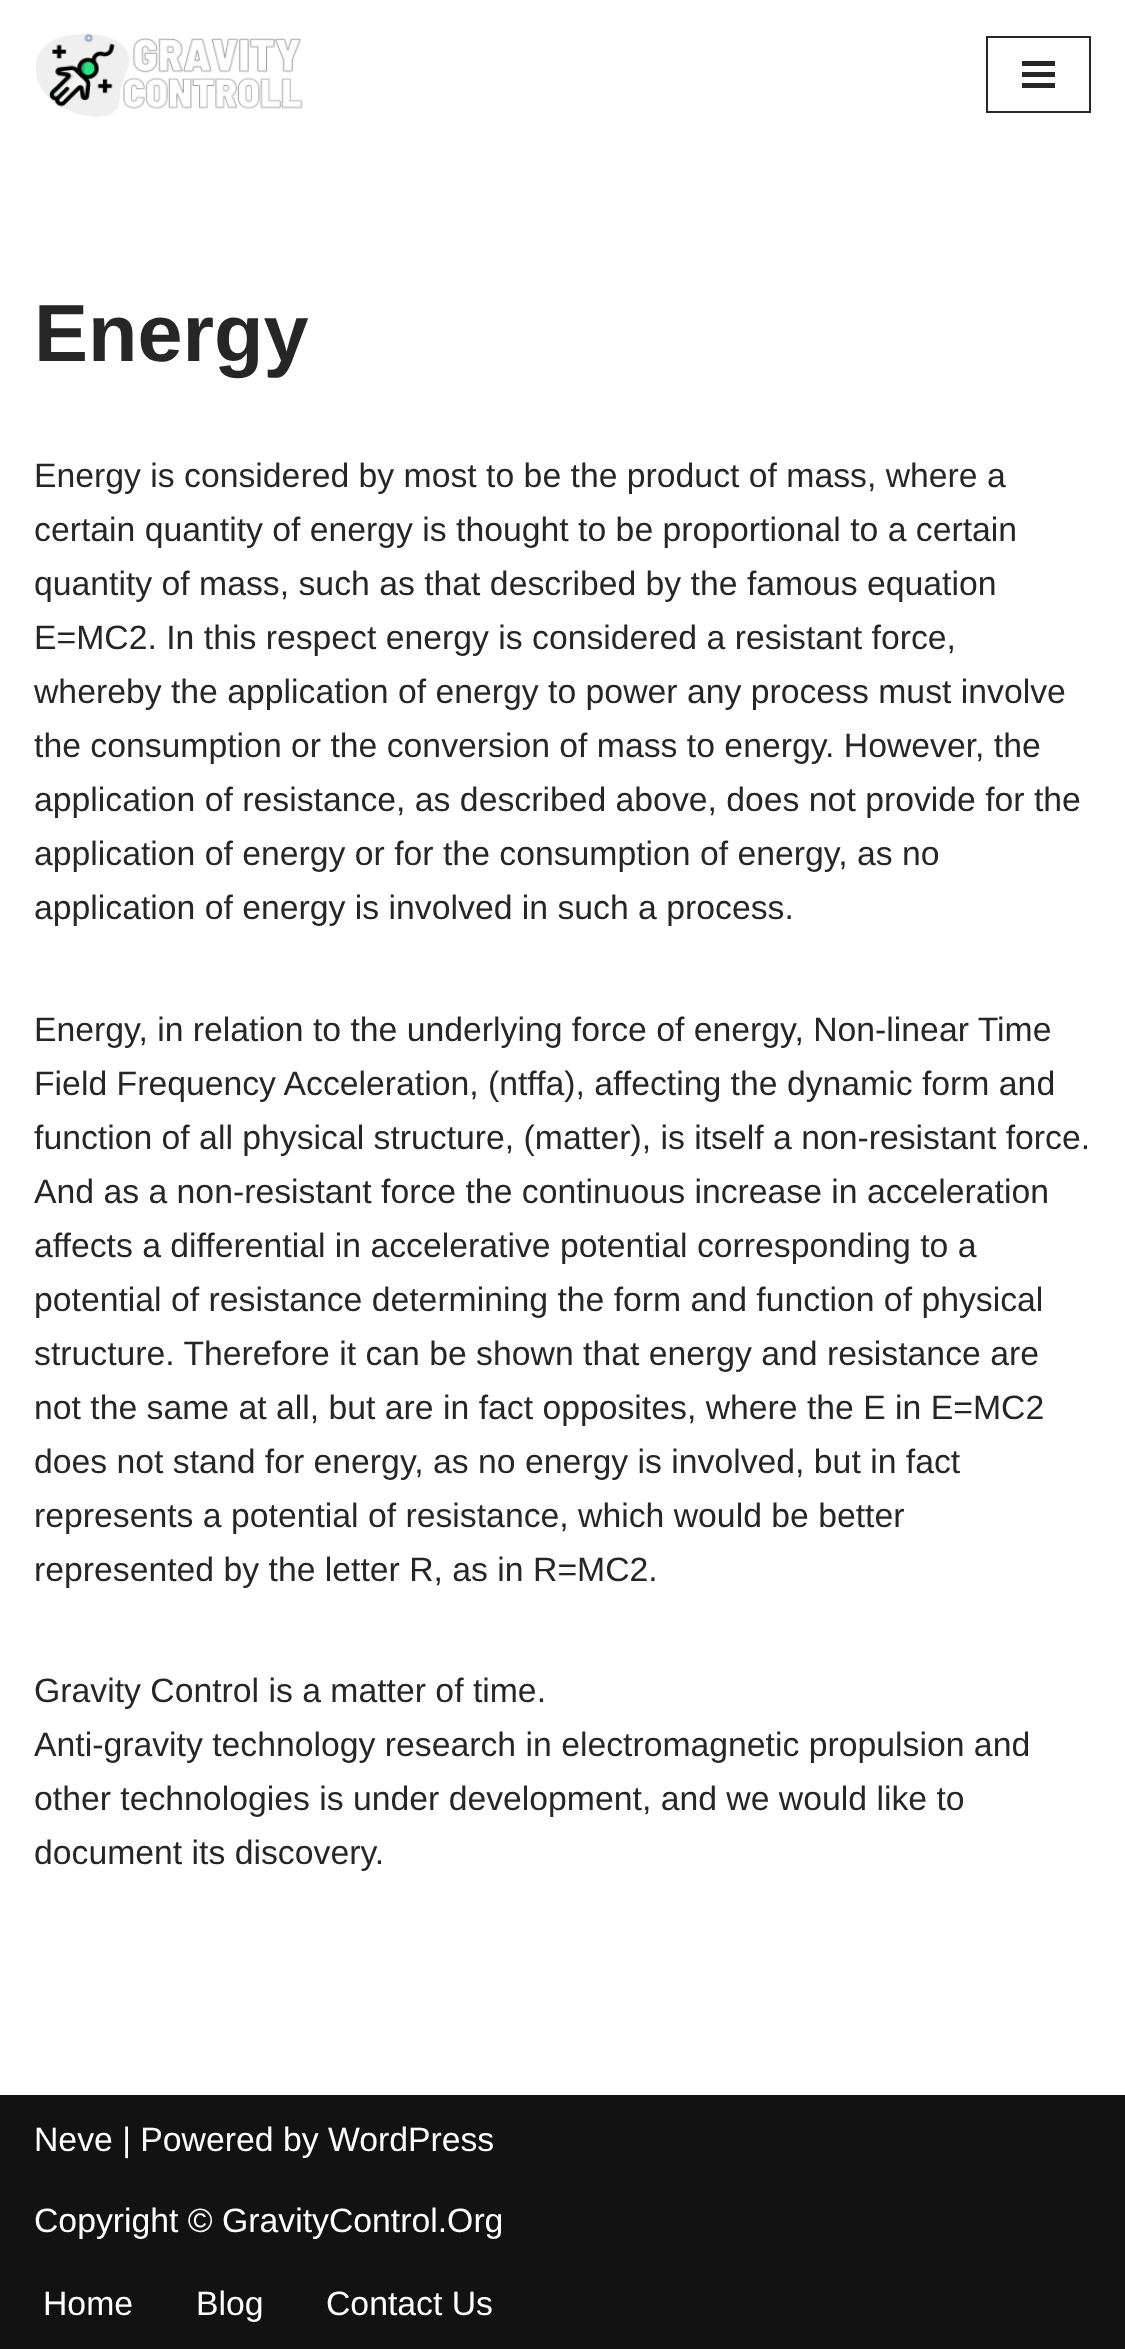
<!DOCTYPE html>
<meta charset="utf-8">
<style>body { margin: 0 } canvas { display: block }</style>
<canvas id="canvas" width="1125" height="2349"></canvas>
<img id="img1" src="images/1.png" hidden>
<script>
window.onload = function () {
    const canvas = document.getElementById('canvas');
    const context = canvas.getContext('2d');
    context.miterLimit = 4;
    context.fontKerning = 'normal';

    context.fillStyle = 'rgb(255, 255, 255)';
    context.fillRect(0, 0, 1125, 2349);
    context.drawImage(document.getElementById('img1'), 36, 33, 267, 84);
    context.strokeStyle = 'rgb(39, 38, 38)';
    context.lineWidth = 2;
    context.strokeRect(987, 37, 103, 75);
    context.fillStyle = 'rgb(39, 38, 38)';
    context.fillRect(1022, 61, 33, 5);
    context.fillRect(1022, 72, 33, 5);
    context.fillRect(1022, 83, 33, 5);
    context.fillStyle = 'rgb(18, 18, 18)';
    context.fillRect(0, 2095, 1125, 254);
    context.font = 'bold 81px Liberation Sans';
    context.fillStyle = 'rgb(39, 38, 38)';
    context.fillText('Energy', 34, 361);
    context.font = '33.75px Liberation Sans';
    context.fillText('Energy is considered by most to be the product of mass, where a', 34, 487);
    context.fillText('certain quantity of energy is thought to be proportional to a certain', 34, 541);
    context.fillText('quantity of mass, such as that described by the famous equation', 34, 595);
    context.fillText('E=MC2. In this respect energy is considered a resistant force,', 34, 649);
    context.fillText('whereby the application of energy to power any process must involve', 34, 703);
    context.fillText('the consumption or the conversion of mass to energy. However, the', 34, 757);
    context.fillText('application of resistance, as described above, does not provide for the', 34, 811);
    context.fillText('application of energy or for the consumption of energy, as no', 34, 865);
    context.fillText('application of energy is involved in such a process.', 34, 919);
    context.fillText('Energy, in relation to the underlying force of energy, Non-linear Time', 34, 1041);
    context.fillText('Field Frequency Acceleration, (ntffa), affecting the dynamic form and', 34, 1095);
    context.fillText('function of all physical structure, (matter), is itself a non-resistant force.', 34, 1149);
    context.fillText('And as a non-resistant force the continuous increase in acceleration', 34, 1203);
    context.fillText('affects a differential in accelerative potential corresponding to a', 34, 1257);
    context.fillText('potential of resistance determining the form and function of physical', 34, 1311);
    context.fillText('structure. Therefore it can be shown that energy and resistance are', 34, 1365);
    context.fillText('not the same at all, but are in fact opposites, where the E in E=MC2', 34, 1419);
    context.fillText('does not stand for energy, as no energy is involved, but in fact', 34, 1473);
    context.fillText('represents a potential of resistance, which would be better', 34, 1527);
    context.fillText('represented by the letter R, as in R=MC2.', 34, 1581);
    context.fillText('Gravity Control is a matter of time.', 34, 1702);
    context.fillText('Anti-gravity technology research in electromagnetic propulsion and', 34, 1756);
    context.fillText('other technologies is under development, and we would like to', 34, 1810);
    context.fillText('document its discovery.', 34, 1864);
    context.fillStyle = 'rgb(255, 255, 255)';
    context.fillText('Neve | Powered by WordPress', 34, 2151);
    context.fillText('Copyright © GravityControl.Org', 34, 2232);
    context.fillText('Home', 43, 2315);
    context.fillText('Blog', 196, 2315);
    context.fillText('Contact Us', 326, 2315);
};
</script>
